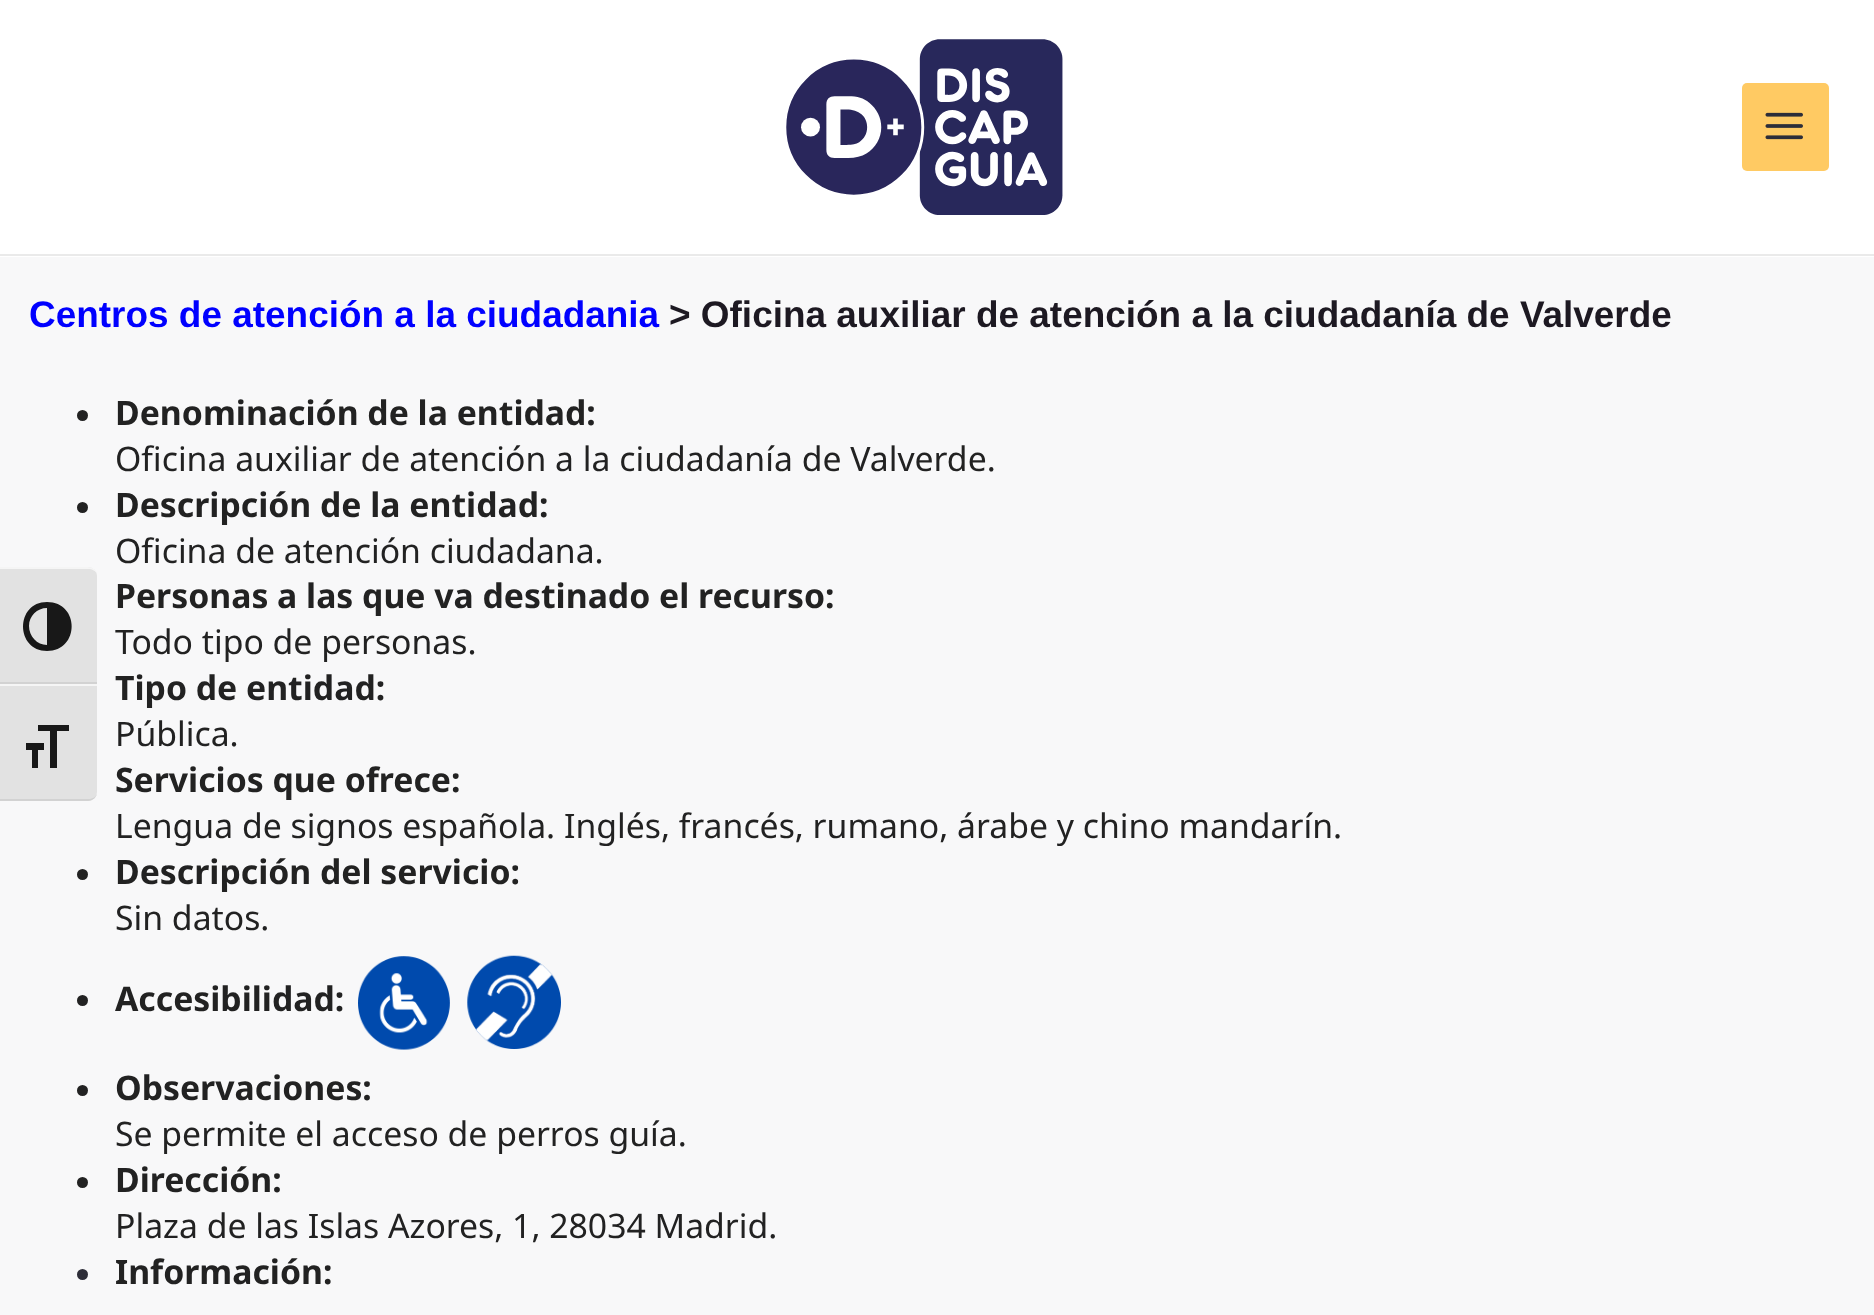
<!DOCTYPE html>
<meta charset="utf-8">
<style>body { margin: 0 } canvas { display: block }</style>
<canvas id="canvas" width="1874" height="1315"></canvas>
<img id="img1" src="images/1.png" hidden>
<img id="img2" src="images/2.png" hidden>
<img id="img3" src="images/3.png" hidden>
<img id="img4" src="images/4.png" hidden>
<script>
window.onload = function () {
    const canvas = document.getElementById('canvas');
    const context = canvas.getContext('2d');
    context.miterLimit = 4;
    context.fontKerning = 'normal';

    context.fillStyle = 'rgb(248, 248, 249)';
    context.fillRect(0, 0, 1874, 1315);
    context.fillStyle = 'rgb(255, 255, 255)';
    context.fillRect(0, 0, 1874, 257);
    context.fillStyle = 'rgb(234, 234, 234)';
    context.fillRect(0, 254, 1874, 2);
    context.drawImage(document.getElementById('img1'), 786, 39, 277, 176);
    context.fillStyle = 'rgb(255, 202, 99)';
    context.beginPath();
    context.roundRect(1742, 83, 87, 88, 5);
    context.fill();
    context.drawImage(document.getElementById('img2'), 1765, 112, 38, 28);
    context.fillStyle = 'rgb(34, 34, 34)';
    context.beginPath();
    context.arc(82.5, 415.5, 5.5, 0, 2 * Math.PI);
    context.fill();
    context.beginPath();
    context.arc(82.5, 507.5, 5.5, 0, 2 * Math.PI);
    context.fill();
    context.beginPath();
    context.arc(82.5, 874.5, 5.5, 0, 2 * Math.PI);
    context.fill();
    context.beginPath();
    context.arc(82.5, 1000.5, 5.5, 0, 2 * Math.PI);
    context.fill();
    context.drawImage(document.getElementById('img3'), 358, 956, 92, 94);
    context.drawImage(document.getElementById('img4'), 467, 955, 94, 94);
    context.beginPath();
    context.arc(82.5, 1090.5, 5.5, 0, 2 * Math.PI);
    context.fill();
    context.beginPath();
    context.arc(82.5, 1182.5, 5.5, 0, 2 * Math.PI);
    context.fill();
    context.fillStyle = 'rgb(45, 45, 56)';
    context.beginPath();
    context.arc(82.5, 1274.5, 5.5, 0, 2 * Math.PI);
    context.fill();
    context.fillStyle = 'rgb(226, 226, 226)';
    context.beginPath();
    context.roundRect(0, 567, 97, 117, [0, 9, 0, 0]);
    context.fill();
    context.fillStyle = 'rgb(245, 245, 245)';
    context.beginPath();
    context.moveTo(0, 567);
    context.lineTo(0, 569);
    context.lineTo(88, 569);
    context.bezierCurveTo(92, 569, 96, 571, 97, 574);
    context.bezierCurveTo(97, 570, 92, 567, 88, 567);
    context.closePath();
    context.fill();
    context.fillStyle = 'rgb(210, 210, 210)';
    context.fillRect(0, 682, 97, 2);
    context.fillStyle = 'rgb(24, 24, 24)';
    context.beginPath();
    context.moveTo(47, 602);
    context.bezierCurveTo(15, 602, 15, 651, 47, 651);
    context.bezierCurveTo(80, 651, 80, 602, 47, 602);
    context.closePath();
    context.moveTo(29, 626);
    context.bezierCurveTo(29, 616, 37, 608, 47, 608);
    context.lineTo(47, 645);
    context.bezierCurveTo(37, 645, 29, 636, 29, 626);
    context.closePath();
    context.fill();
    context.fillStyle = 'rgb(226, 226, 226)';
    context.beginPath();
    context.roundRect(0, 684, 97, 117, [0, 0, 9, 0]);
    context.fill();
    context.fillStyle = 'rgb(245, 245, 245)';
    context.fillRect(0, 684, 97, 2);
    context.fillStyle = 'rgb(210, 210, 210)';
    context.beginPath();
    context.moveTo(0, 799);
    context.lineTo(0, 801);
    context.lineTo(88, 801);
    context.bezierCurveTo(92, 801, 96, 798, 97, 794);
    context.bezierCurveTo(96, 797, 92, 799, 88, 799);
    context.closePath();
    context.fill();
    context.fillStyle = 'rgb(24, 24, 24)';
    context.beginPath();
    context.moveTo(26, 743);
    context.lineTo(44, 743);
    context.lineTo(44, 750);
    context.lineTo(38, 750);
    context.lineTo(38, 768);
    context.lineTo(32, 768);
    context.lineTo(32, 750);
    context.lineTo(26, 750);
    context.closePath();
    context.moveTo(69, 731);
    context.lineTo(57, 731);
    context.lineTo(57, 768);
    context.lineTo(50, 768);
    context.lineTo(50, 731);
    context.lineTo(38, 731);
    context.lineTo(38, 725);
    context.lineTo(69, 725);
    context.closePath();
    context.fill();
    context.font = 'bold 36.95px Liberation Sans';
    context.fillStyle = 'rgb(0, 0, 255)';
    context.fillText('Centros de atención a la ciudadania', 29, 327);
    context.fillStyle = 'rgb(29, 25, 34)';
    context.fillText('> Oficina auxiliar de atención a la ciudadanía de Valverde', 669, 327);
    context.font = 'bold 33.75px Noto Sans';
    context.fillStyle = 'rgb(34, 34, 34)';
    context.fillText('Denominación de la entidad:', 115, 425);
    context.font = '33.75px Noto Sans';
    context.fillText('Oficina auxiliar de atención a la ciudadanía de Valverde.', 115, 471);
    context.font = 'bold 33.75px Noto Sans';
    context.fillText('Descripción de la entidad:', 115, 517);
    context.font = '33.75px Noto Sans';
    context.fillText('Oficina de atención ciudadana.', 115, 563);
    context.font = 'bold 33.75px Noto Sans';
    context.fillText('Personas a las que va destinado el recurso:', 115, 608);
    context.font = '33.75px Noto Sans';
    context.fillText('Todo tipo de personas.', 115, 654);
    context.font = 'bold 33.75px Noto Sans';
    context.fillText('Tipo de entidad:', 115, 700);
    context.font = '33.75px Noto Sans';
    context.fillText('Pública.', 115, 746);
    context.font = 'bold 33.75px Noto Sans';
    context.fillText('Servicios que ofrece:', 115, 792);
    context.font = '33.75px Noto Sans';
    context.fillText('Lengua de signos española. Inglés, francés, rumano, árabe y chino mandarín.', 115, 838);
    context.font = 'bold 33.75px Noto Sans';
    context.fillText('Descripción del servicio:', 115, 884);
    context.font = '33.75px Noto Sans';
    context.fillText('Sin datos.', 115, 930);
    context.font = 'bold 33.75px Noto Sans';
    context.fillText('Accesibilidad:', 115, 1011);
    context.fillText('Observaciones:', 115, 1100);
    context.font = '33.75px Noto Sans';
    context.fillText('Se permite el acceso de perros guía.', 115, 1146);
    context.font = 'bold 33.75px Noto Sans';
    context.fillText('Dirección:', 115, 1192);
    context.font = '33.75px Noto Sans';
    context.fillText('Plaza de las Islas Azores, 1, 28034 Madrid.', 115, 1238);
    context.font = 'bold 33.75px Noto Sans';
    context.fillText('Información:', 115, 1284);
};
</script>
